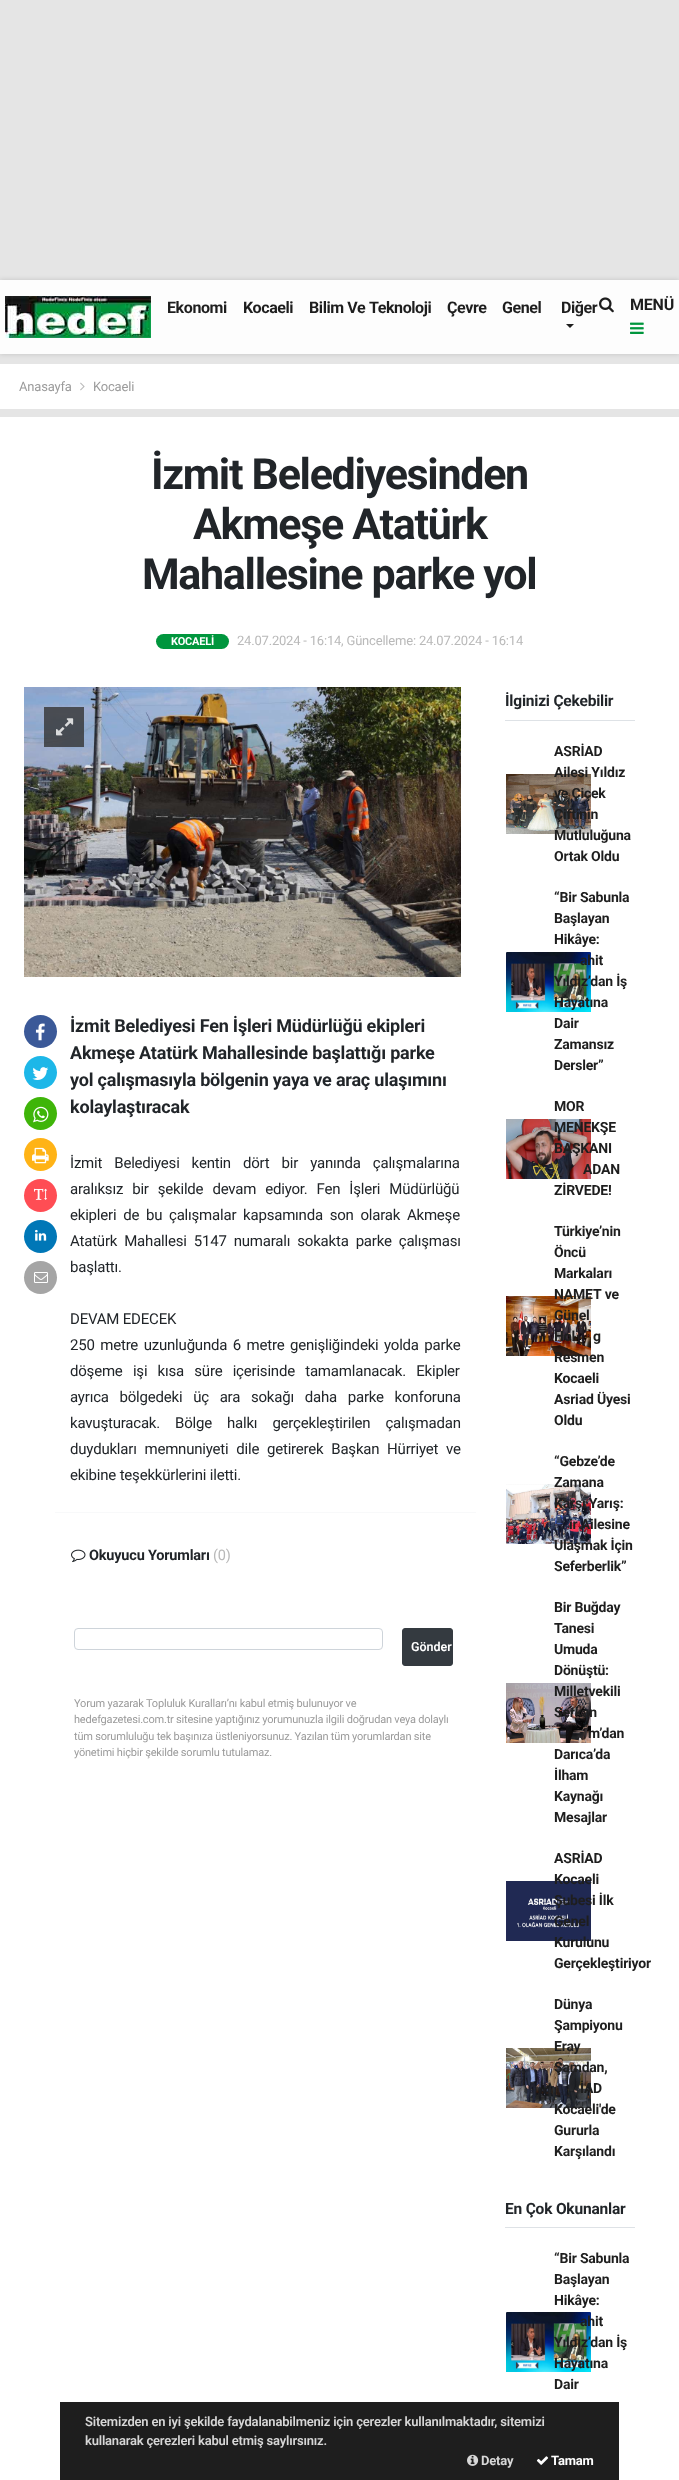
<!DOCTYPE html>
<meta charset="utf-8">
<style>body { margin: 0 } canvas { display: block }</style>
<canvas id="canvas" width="679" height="2480"></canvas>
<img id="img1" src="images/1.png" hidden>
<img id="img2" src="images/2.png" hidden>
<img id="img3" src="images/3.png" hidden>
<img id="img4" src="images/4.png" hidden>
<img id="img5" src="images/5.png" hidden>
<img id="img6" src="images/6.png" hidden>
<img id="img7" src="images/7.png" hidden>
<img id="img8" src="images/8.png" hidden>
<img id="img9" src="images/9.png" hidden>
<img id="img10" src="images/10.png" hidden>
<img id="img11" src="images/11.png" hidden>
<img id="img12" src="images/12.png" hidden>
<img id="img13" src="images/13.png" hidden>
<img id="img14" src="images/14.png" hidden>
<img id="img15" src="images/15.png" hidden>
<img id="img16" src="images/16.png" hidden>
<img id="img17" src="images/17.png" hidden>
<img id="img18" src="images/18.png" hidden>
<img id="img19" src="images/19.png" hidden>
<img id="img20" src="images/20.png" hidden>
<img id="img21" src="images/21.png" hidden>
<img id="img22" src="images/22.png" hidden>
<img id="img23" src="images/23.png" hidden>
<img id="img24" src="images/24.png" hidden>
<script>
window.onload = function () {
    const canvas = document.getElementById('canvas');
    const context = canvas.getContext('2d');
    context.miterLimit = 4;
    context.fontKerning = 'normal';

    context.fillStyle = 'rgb(229, 229, 229)';
    context.fillRect(0, 0, 679, 2480);
    context.fillStyle = 'rgba(0, 0, 0, 0.15)';
    context.filter = 'blur(2.5px)';
    context.beginPath();
    context.rect(0, 280, 679, 74);
    context.fill();
    context.filter = 'none';
    context.fillStyle = 'rgb(253, 253, 253)';
    context.fillRect(0, 280, 679, 74);
    context.drawImage(document.getElementById('img1'), 5, 296, 146, 42);
    context.fillStyle = 'rgb(30, 30, 30)';
    context.beginPath();
    context.moveTo(566, 324);
    context.lineTo(574, 324);
    context.lineTo(570, 328);
    context.closePath();
    context.fill();
    context.drawImage(document.getElementById('img2'), 599, 297, 15, 16);
    context.drawImage(document.getElementById('img3'), 630, 322, 14, 12);
    context.fillStyle = 'rgb(255, 255, 255)';
    context.fillRect(0, 364, 679, 45);
    context.drawImage(document.getElementById('img4'), 80, 382, 5, 9);
    context.fillRect(0, 417, 679, 2063);
    context.fillStyle = 'rgb(0, 150, 61)';
    context.beginPath();
    context.roundRect(156, 634, 73, 15, 7.5);
    context.fill();
    context.drawImage(document.getElementById('img5'), 24, 687, 437, 290);
    context.fillStyle = 'rgba(51, 51, 51, 0.8)';
    context.fillRect(44, 707, 40, 40);
    context.drawImage(document.getElementById('img6'), 56, 718, 18, 18);
    context.fillStyle = 'rgb(59, 89, 152)';
    context.beginPath();
    context.arc(40.5, 1031.5, 16.5, 0, 2 * Math.PI);
    context.fill();
    context.drawImage(document.getElementById('img7'), 35, 1023, 10, 18);
    context.fillStyle = 'rgb(29, 183, 232)';
    context.beginPath();
    context.arc(40.5, 1072.5, 16.5, 0, 2 * Math.PI);
    context.fill();
    context.drawImage(document.getElementById('img8'), 32, 1067, 17, 13);
    context.fillStyle = 'rgb(63, 181, 9)';
    context.beginPath();
    context.arc(40.5, 1113.5, 16.5, 0, 2 * Math.PI);
    context.fill();
    context.drawImage(document.getElementById('img9'), 33, 1106, 16, 17);
    context.fillStyle = 'rgb(255, 179, 22)';
    context.beginPath();
    context.arc(40.5, 1154.5, 16.5, 0, 2 * Math.PI);
    context.fill();
    context.drawImage(document.getElementById('img10'), 32, 1147, 17, 17);
    context.fillStyle = 'rgb(255, 77, 84)';
    context.beginPath();
    context.arc(40.5, 1195.5, 16.5, 0, 2 * Math.PI);
    context.fill();
    context.drawImage(document.getElementById('img11'), 34, 1188, 13, 12);
    context.fillStyle = 'rgb(0, 119, 183)';
    context.beginPath();
    context.arc(40.5, 1236.5, 16.5, 0, 2 * Math.PI);
    context.fill();
    context.drawImage(document.getElementById('img12'), 35, 1229, 12, 12);
    context.fillStyle = 'rgb(165, 165, 165)';
    context.beginPath();
    context.arc(40.5, 1277.5, 16.5, 0, 2 * Math.PI);
    context.fill();
    context.drawImage(document.getElementById('img13'), 34, 1272, 14, 11);
    context.fillStyle = 'rgb(248, 249, 250)';
    context.fillRect(55, 1512, 421, 1);
    context.drawImage(document.getElementById('img14'), 71, 1549, 15, 14);
    context.beginPath();
    context.roundRect(74.5, 1628.5, 308, 21, 3.5);
    context.strokeStyle = 'rgb(206, 212, 218)';
    context.stroke();
    context.fillStyle = 'rgb(52, 58, 64)';
    context.beginPath();
    context.roundRect(402.5, 1628.5, 50, 37, 2.5);
    context.fill();
    context.strokeStyle = 'rgb(52, 58, 64)';
    context.stroke();
    context.fillStyle = 'rgb(222, 226, 230)';
    context.fillRect(505, 720, 130, 1);
    context.drawImage(document.getElementById('img15'), 506, 774, 85, 60);
    context.drawImage(document.getElementById('img16'), 506, 952, 85, 60);
    context.drawImage(document.getElementById('img17'), 506, 1119, 85, 60);
    context.drawImage(document.getElementById('img18'), 506, 1296, 85, 60);
    context.drawImage(document.getElementById('img19'), 506, 1484, 85, 60);
    context.drawImage(document.getElementById('img20'), 506, 1683, 85, 60);
    context.drawImage(document.getElementById('img21'), 506, 1881, 85, 60);
    context.drawImage(document.getElementById('img22'), 506, 2048, 85, 60);
    context.fillRect(505, 2227, 130, 1);
    context.drawImage(document.getElementById('img16'), 506, 2312, 85, 60);
    context.fillStyle = 'rgb(30, 30, 30)';
    context.fillRect(60, 2402, 559, 78);
    context.drawImage(document.getElementById('img23'), 467, 2454, 12, 12);
    context.drawImage(document.getElementById('img24'), 536, 2456, 13, 9);
    context.letterSpacing = '-0.4px';
    context.font = 'bold 16px Roboto';
    context.fillText('Ekonomi', 167, 313);
    context.fillText('Kocaeli', 243, 313);
    context.fillText('Bilim Ve Teknoloji', 309, 313);
    context.fillText('Çevre', 447, 313);
    context.fillText('Genel', 502, 313);
    context.fillText('Diğer', 561, 313);
    context.letterSpacing = '-0.2px';
    context.fillText('MENÜ', 630, 310);
    context.font = '13px Roboto';
    context.fillStyle = 'rgb(155, 155, 155)';
    context.fillText('Anasayfa', 19, 391);
    context.fillText('Kocaeli', 93, 391);
    context.letterSpacing = '-1.3px';
    context.font = 'bold 43px Roboto';
    context.fillStyle = 'rgb(33, 37, 41)';
    context.fillText('İzmit Belediyesinden', 151, 489);
    context.fillText('Akmeşe Atatürk', 193, 539);
    context.fillText('Mahallesine parke yol', 142, 589);
    context.letterSpacing = '-0.2px';
    context.font = 'bold 11px Roboto';
    context.fillStyle = 'rgb(255, 255, 255)';
    context.fillText('KOCAELİ', 171, 645);
    context.font = '13px Roboto';
    context.fillStyle = 'rgb(185, 185, 185)';
    context.fillText('24.07.2024 - 16:14, Güncelleme: 24.07.2024 - 16:14', 237, 645);
    context.font = 'bold 18px Roboto';
    context.fillStyle = 'rgb(33, 37, 41)';
    context.fillText('İzmit Belediyesi Fen İşleri Müdürlüğü ekipleri', 70, 1032);
    context.fillText('Akmeşe Atatürk Mahallesinde başlattığı parke', 70, 1059);
    context.fillText('yol çalışmasıyla bölgenin yaya ve araç ulaşımını', 70, 1086);
    context.fillText('kolaylaştıracak', 70, 1113);
    context.wordSpacing = '8.5px';
    context.font = '15px Roboto';
    context.fillText('İzmit Belediyesi kentin dört bir yanında çalışmalarına', 70, 1168);
    context.wordSpacing = '5.5px';
    context.fillText('aralıksız bir şekilde devam ediyor. Fen İşleri Müdürlüğü', 70, 1194);
    context.wordSpacing = '3.25px';
    context.fillText('ekipleri de bu çalışmalar kapsamında son olarak Akmeşe', 70, 1220);
    context.wordSpacing = '3.5px';
    context.fillText('Atatürk Mahallesi 5147 numaralı sokakta parke çalışması', 70, 1246);
    context.wordSpacing = '0px';
    context.fillText('başlattı.', 70, 1272);
    context.fillText('DEVAM EDECEK', 70, 1324);
    context.wordSpacing = '2px';
    context.fillText('250 metre uzunluğunda 6 metre genişliğindeki yolda parke', 70, 1350);
    context.wordSpacing = '6.75px';
    context.fillText('döşeme işi kısa süre içerisinde tamamlanacak. Ekipler', 70, 1376);
    context.wordSpacing = '7.25px';
    context.fillText('ayrıca bölgedeki üç ara sokağı daha parke konforuna', 70, 1402);
    context.wordSpacing = '11.5px';
    context.fillText('kavuşturacak. Bölge halkı gerçekleştirilen çalışmadan', 70, 1428);
    context.wordSpacing = '4.25px';
    context.fillText('duydukları memnuniyeti dile getirerek Başkan Hürriyet ve', 70, 1454);
    context.wordSpacing = '0px';
    context.fillText('ekibine teşekkürlerini iletti.', 70, 1480);
    context.font = 'bold 14.5px Roboto';
    context.fillText('Okuyucu Yorumları', 89, 1560);
    context.font = '14.5px Roboto';
    context.fillStyle = 'rgb(185, 185, 185)';
    context.fillText('(0)', 213, 1560);
    context.letterSpacing = '0px';
    context.font = '600 12.5px Roboto';
    context.fillStyle = 'rgb(255, 255, 255)';
    context.fillText('Gönder', 411, 1651);
    context.letterSpacing = '-0.2px';
    context.font = '11px Roboto';
    context.fillStyle = 'rgb(155, 155, 155)';
    context.fillText('Yorum yazarak Topluluk Kuralları’nı kabul etmiş bulunuyor ve', 74, 1707);
    context.fillText('hedefgazetesi.com.tr sitesine yaptığınız yorumunuzla ilgili doğrudan veya dolaylı', 74, 1723);
    context.fillText('tüm sorumluluğu tek başınıza üstleniyorsunuz. Yazılan tüm yorumlardan site', 74, 1740);
    context.fillText('yönetimi hiçbir şekilde sorumlu tutulamaz.', 74, 1756);
    context.font = 'bold 15.5px Roboto';
    context.fillStyle = 'rgb(33, 37, 41)';
    context.fillText('İlginizi Çekebilir', 505, 706);
    context.font = 'bold 14px Roboto';
    context.fillStyle = 'rgb(30, 30, 30)';
    context.fillText('ASRİAD', 554, 756);
    context.fillText('Ailesi Yıldız', 554, 777);
    context.fillText('ve Çiçek', 554, 798);
    context.fillText('Çiftinin', 554, 819);
    context.fillText('Mutluluğuna', 554, 840);
    context.fillText('Ortak Oldu', 554, 861);
    context.fillText('“Bir Sabunla', 554, 902);
    context.fillText('Başlayan', 554, 923);
    context.fillText('Hikâye:', 554, 944);
    context.fillText('ahit', 580, 965);
    context.fillText('Yıldız’dan İş', 554, 986);
    context.fillText('Hayatına', 554, 1007);
    context.fillText('Dair', 554, 1028);
    context.fillText('Zamansız', 554, 1049);
    context.fillText('Dersler”', 554, 1070);
    context.fillText('MOR', 554, 1111);
    context.fillText('MENEKŞE', 554, 1132);
    context.fillText('BAŞKANI', 554, 1153);
    context.fillText('ADAN', 583, 1174);
    context.fillText('ZİRVEDE!', 554, 1195);
    context.fillText('Türkiye’nin', 554, 1236);
    context.fillText('Öncü', 554, 1257);
    context.fillText('Markaları', 554, 1278);
    context.fillText('NAMET ve', 554, 1299);
    context.fillText('Günel', 554, 1320);
    context.fillText('Hol', 554, 1341);
    context.fillText('g', 593, 1341);
    context.fillText('Resmen', 554, 1362);
    context.fillText('Kocaeli', 554, 1383);
    context.fillText('Asriad Üyesi', 554, 1404);
    context.fillText('Oldu', 554, 1425);
    context.fillText('“Gebze’de', 554, 1466);
    context.fillText('Zamana', 554, 1487);
    context.fillText('Karşı Yarış:', 554, 1508);
    context.fillText('ir Ailesine', 569, 1529);
    context.fillText('Ulaşmak İçin', 554, 1550);
    context.fillText('Seferberlik”', 554, 1571);
    context.fillText('Bir Buğday', 554, 1612);
    context.fillText('Tanesi', 554, 1633);
    context.fillText('Umuda', 554, 1654);
    context.fillText('Dönüştü:', 554, 1675);
    context.fillText('Milletvekili', 554, 1696);
    context.fillText('Serkan', 554, 1717);
    context.fillText('m’dan', 588, 1738);
    context.fillText('Darıca’da', 554, 1759);
    context.fillText('İlham', 554, 1780);
    context.fillText('Kaynağı', 554, 1801);
    context.fillText('Mesajlar', 554, 1822);
    context.fillText('ASRİAD', 554, 1863);
    context.fillText('Kocaeli', 554, 1884);
    context.fillText('Şubesi İlk', 554, 1905);
    context.fillText('Genel', 554, 1926);
    context.fillText('Kurulunu', 554, 1947);
    context.fillText('Gerçekleştiriyor', 554, 1968);
    context.fillText('Dünya', 554, 2009);
    context.fillText('Şampiyonu', 554, 2030);
    context.fillText('Eray', 554, 2051);
    context.fillText('Şamdan,', 554, 2072);
    context.fillText('İAD', 580, 2093);
    context.fillText('Kocaeli\'de', 554, 2114);
    context.fillText('Gururla', 554, 2135);
    context.fillText('Karşılandı', 554, 2156);
    context.font = 'bold 15.5px Roboto';
    context.fillStyle = 'rgb(33, 37, 41)';
    context.fillText('En Çok Okunanlar', 505, 2214);
    context.font = 'bold 14px Roboto';
    context.fillStyle = 'rgb(30, 30, 30)';
    context.fillText('“Bir Sabunla', 554, 2263);
    context.fillText('Başlayan', 554, 2284);
    context.fillText('Hikâye:', 554, 2305);
    context.fillText('ahit', 580, 2326);
    context.fillText('Yıldız’dan İş', 554, 2347);
    context.fillText('Hayatına', 554, 2368);
    context.fillText('Dair', 554, 2389);
    context.font = '600 13px Roboto';
    context.fillStyle = 'rgb(215, 215, 215)';
    context.fillText('Sitemizden en iyi şekilde faydalanabilmeniz için çerezler kullanılmaktadır, sitemizi', 85, 2426);
    context.fillText('kullanarak çerezleri kabul etmiş saylırsınız.', 85, 2445);
    context.font = 'bold 13px Roboto';
    context.fillText('Detay', 481, 2465);
    context.fillStyle = 'rgb(255, 255, 255)';
    context.fillText('Tamam', 551, 2465);
};
</script>
